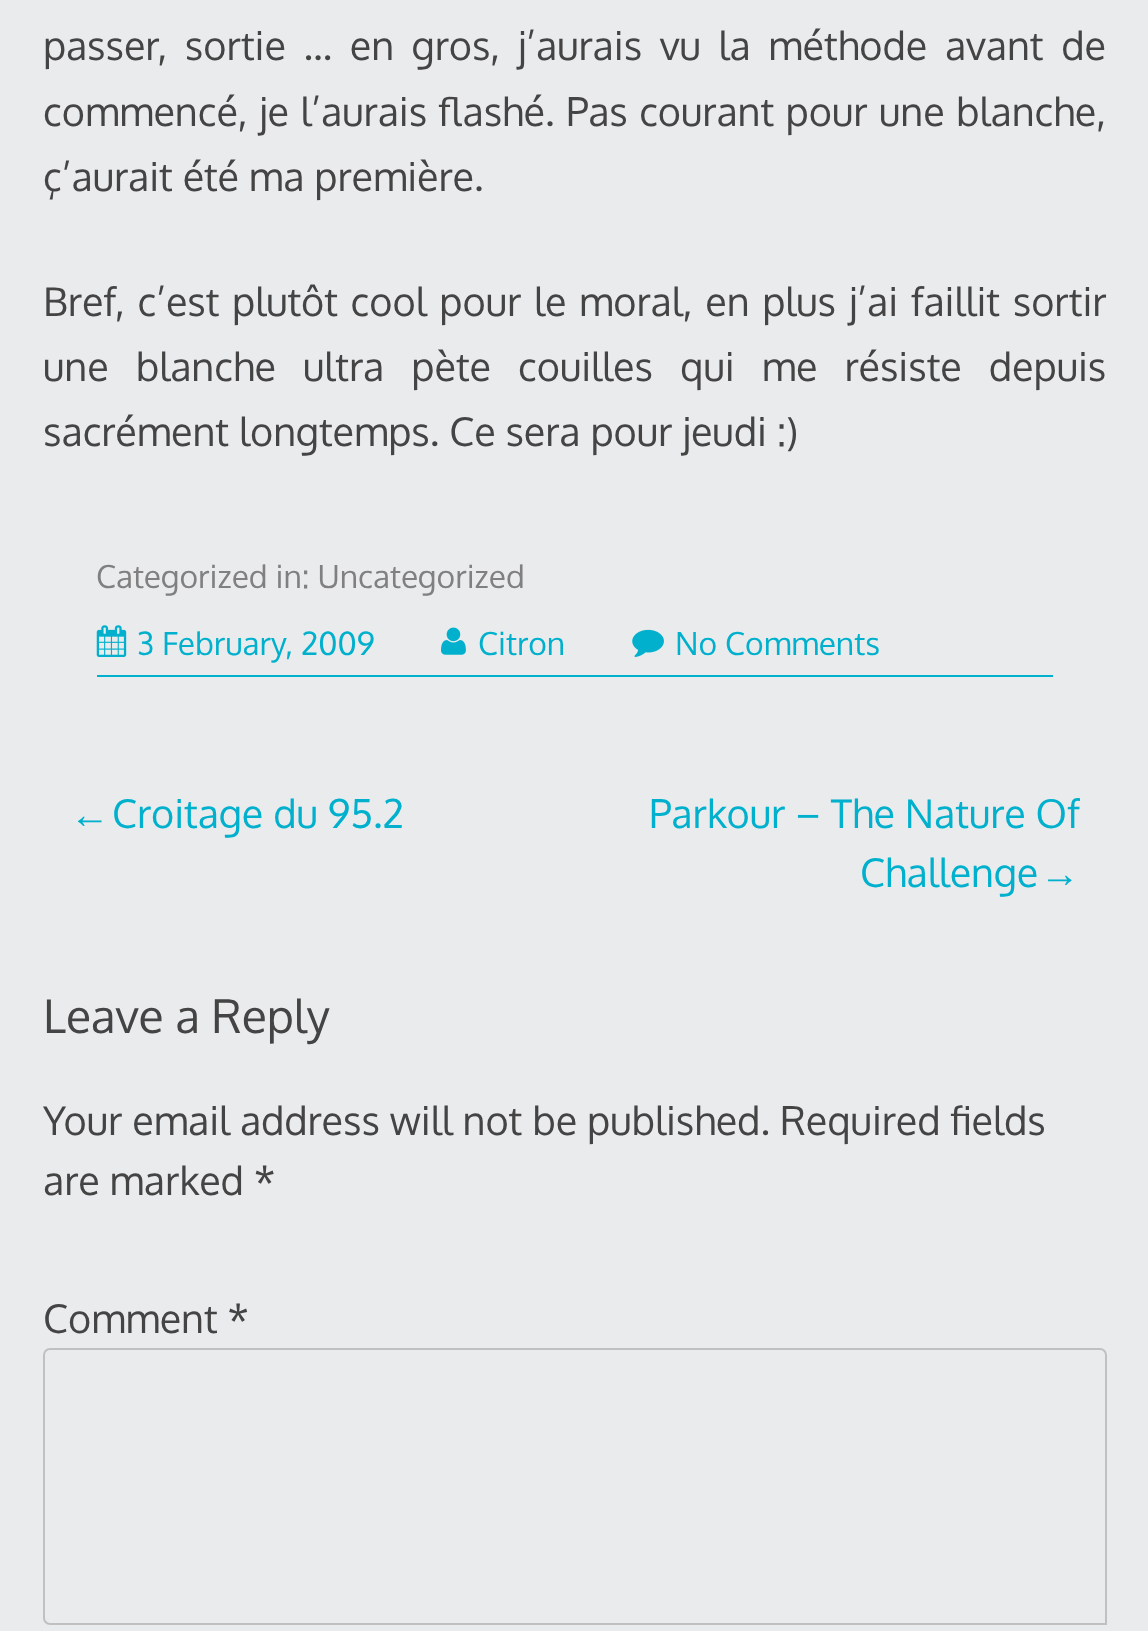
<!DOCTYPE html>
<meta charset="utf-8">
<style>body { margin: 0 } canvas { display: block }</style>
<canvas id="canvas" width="1148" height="1631"></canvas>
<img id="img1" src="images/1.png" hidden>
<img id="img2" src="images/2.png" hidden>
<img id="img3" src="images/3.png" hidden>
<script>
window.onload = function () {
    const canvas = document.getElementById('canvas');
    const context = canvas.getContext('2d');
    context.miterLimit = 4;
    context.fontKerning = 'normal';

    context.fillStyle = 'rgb(233, 235, 237)';
    context.fillRect(0, 0, 1148, 1631);
    context.fillStyle = 'rgb(0, 176, 204)';
    context.fillRect(97, 675, 956, 2);
    context.drawImage(document.getElementById('img1'), 96, 625, 31, 32);
    context.drawImage(document.getElementById('img2'), 441, 627, 25, 28);
    context.drawImage(document.getElementById('img3'), 632, 629, 32, 28);
    context.beginPath();
    context.roundRect(44, 1349, 1062, 275, [6, 6, 0, 6]);
    context.strokeStyle = 'rgb(192, 192, 192)';
    context.lineWidth = 2;
    context.stroke();
    context.wordSpacing = '7.75px';
    context.font = '39.6px Oxygen';
    context.fillStyle = 'rgb(68, 68, 68)';
    context.fillText('passer, sortie … en gros, j’aurais vu la méthode avant de', 43, 60);
    context.wordSpacing = '1.5px';
    context.fillText('commencé, je l’aurais flashé. Pas courant pour une blanche,', 43, 126);
    context.wordSpacing = '0px';
    context.fillText('ç’aurait été ma première.', 43, 191);
    context.wordSpacing = '2.75px';
    context.fillText('Bref, c’est plutôt cool pour le moral, en plus j’ai faillit sortir', 43, 316);
    context.wordSpacing = '17.25px';
    context.fillText('une blanche ultra pète couilles qui me résiste depuis', 43, 381);
    context.wordSpacing = '0px';
    context.fillText('sacrément longtemps. Ce sera pour jeudi :)', 43, 446);
    context.font = '31.75px Oxygen';
    context.fillStyle = 'rgb(128, 128, 128)';
    context.fillText('Categorized in: Uncategorized', 96, 588);
    context.fillStyle = 'rgb(0, 176, 204)';
    context.fillText('3 February, 2009', 137, 655);
    context.fillText('Citron', 478, 655);
    context.fillText('No Comments', 675, 655);
    context.font = '39.6px Liberation Sans';
    context.fillText('←', 70, 828);
    context.font = '39.6px Oxygen';
    context.fillText('Croitage du 95.2', 112, 828);
    context.save();
    context.beginPath();
    context.rect(70, 783, 1010, 119);
    context.clip();
    context.fillText('Parkour – The Nature Of', 649, 828);
    context.restore();
    context.fillText('Challenge', 860, 887);
    context.font = '39.6px Liberation Sans';
    context.fillText('→', 1040, 887);
    context.font = '46.25px Oxygen';
    context.fillStyle = 'rgb(68, 68, 68)';
    context.fillText('Leave a Reply', 43, 1033);
    context.font = '39.6px Oxygen';
    context.fillText('Your email address will not be published. Required fields', 43, 1135);
    context.fillText('are marked *', 43, 1195);
    context.fillText('Comment *', 43, 1333);
};
</script>
